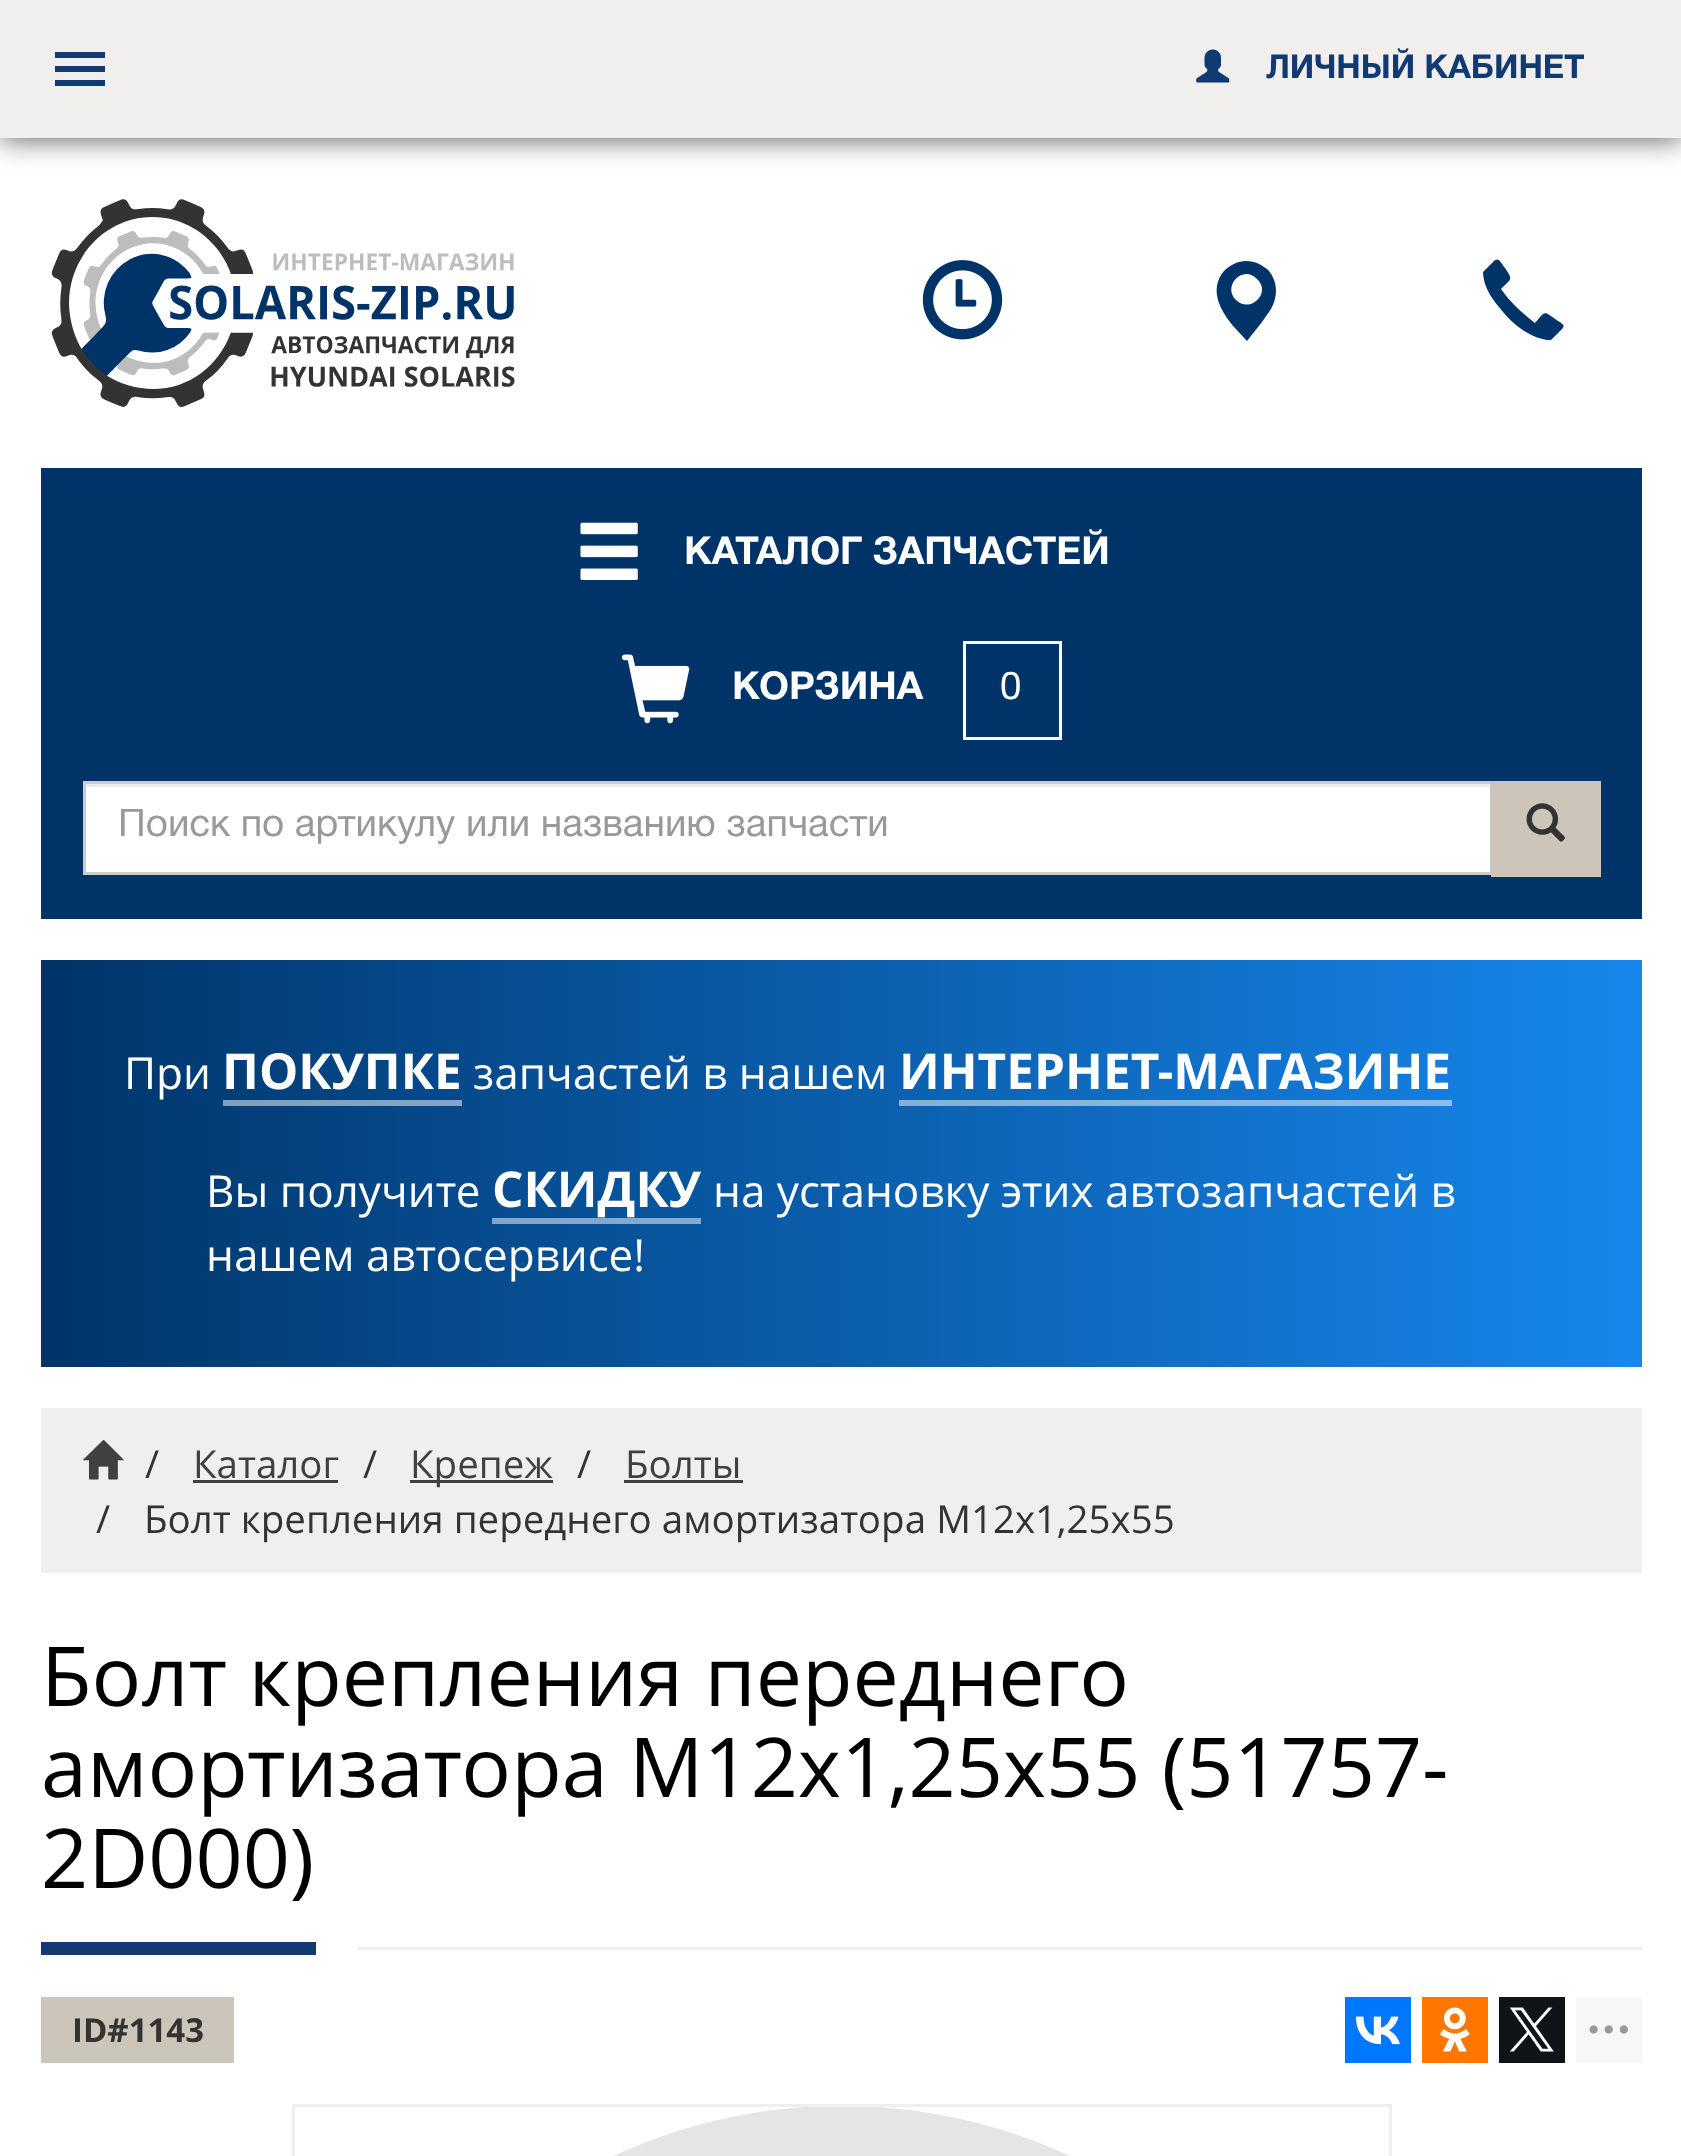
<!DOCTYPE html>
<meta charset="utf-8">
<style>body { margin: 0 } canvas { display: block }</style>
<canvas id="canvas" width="1681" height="2156"></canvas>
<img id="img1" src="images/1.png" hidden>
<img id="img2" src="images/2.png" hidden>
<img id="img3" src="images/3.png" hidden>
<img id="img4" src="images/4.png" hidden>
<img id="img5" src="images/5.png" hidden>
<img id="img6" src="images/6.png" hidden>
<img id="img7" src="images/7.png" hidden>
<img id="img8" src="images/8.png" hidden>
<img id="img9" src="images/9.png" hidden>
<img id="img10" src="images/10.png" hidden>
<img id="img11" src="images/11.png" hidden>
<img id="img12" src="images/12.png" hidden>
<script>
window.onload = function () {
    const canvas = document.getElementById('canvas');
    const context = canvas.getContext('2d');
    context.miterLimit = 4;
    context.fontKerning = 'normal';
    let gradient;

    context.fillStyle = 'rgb(255, 255, 255)';
    context.fillRect(0, 0, 1681, 2156);
    context.fillStyle = 'rgba(0, 0, 0, 0.6)';
    context.filter = 'blur(14px)';
    context.beginPath();
    context.rect(0, 3, 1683, 137);
    context.fill();
    context.filter = 'none';
    context.fillStyle = 'rgb(241, 239, 238)';
    context.fillRect(0, 0, 1681, 138);
    context.fillStyle = 'rgb(16, 58, 113)';
    context.fillRect(55, 52, 50, 6);
    context.fillRect(55, 66, 50, 6);
    context.fillRect(55, 80, 50, 6);
    context.drawImage(document.getElementById('img1'), 1196, 49, 34, 34);
    context.drawImage(document.getElementById('img2'), 51, 199, 464, 208);
    context.drawImage(document.getElementById('img3'), 922, 260, 81, 80);
    context.fillStyle = 'rgb(0, 52, 105)';
    context.beginPath();
    context.moveTo(1246, 261);
    context.bezierCurveTo(1255, 261, 1263, 265, 1269, 271);
    context.bezierCurveTo(1278, 282, 1278, 297, 1271, 309);
    context.lineTo(1262, 322);
    context.lineTo(1247, 341);
    context.lineTo(1235, 328);
    context.bezierCurveTo(1221, 312, 1208, 290, 1224, 271);
    context.bezierCurveTo(1230, 265, 1238, 261, 1246, 261);
    context.closePath();
    context.moveTo(1257, 279);
    context.bezierCurveTo(1243, 264, 1222, 286, 1236, 300);
    context.bezierCurveTo(1250, 314, 1272, 293, 1257, 279);
    context.closePath();
    context.fill();
    context.beginPath();
    context.moveTo(1483, 272);
    context.lineTo(1493, 262);
    context.bezierCurveTo(1499, 256, 1500, 262, 1505, 268);
    context.bezierCurveTo(1513, 280, 1512, 278, 1501, 289);
    context.bezierCurveTo(1510, 302, 1522, 313, 1535, 323);
    context.bezierCurveTo(1545, 312, 1543, 310, 1555, 319);
    context.bezierCurveTo(1564, 325, 1567, 325, 1559, 332);
    context.lineTo(1551, 340);
    context.lineTo(1547, 340);
    context.bezierCurveTo(1528, 337, 1510, 322, 1499, 307);
    context.bezierCurveTo(1491, 298, 1483, 285, 1483, 272);
    context.closePath();
    context.fill();
    context.fillRect(41, 468, 1601, 451);
    context.drawImage(document.getElementById('img4'), 580, 522, 58, 58);
    context.drawImage(document.getElementById('img5'), 621, 654, 69, 70);
    context.strokeStyle = 'rgb(255, 255, 255)';
    context.lineWidth = 3;
    context.strokeRect(964.5, 642.5, 96, 96);
    context.fillStyle = 'rgb(255, 255, 255)';
    context.fillRect(86, 787, 1404, 85);
    context.fillStyle = 'rgb(236, 236, 236)';
    context.fillRect(85, 784, 1406, 3);
    context.strokeStyle = 'rgb(204, 204, 204)';
    context.strokeRect(84.5, 782.5, 1407, 91);
    context.fillStyle = 'rgb(204, 197, 185)';
    context.fillRect(1491, 781, 110, 96);
    context.drawImage(document.getElementById('img6'), 1526, 803, 39, 39);
    gradient = context.createLinearGradient(41, 1163, 1642, 1163);
    gradient.addColorStop(0, 'rgb(0, 52, 105)');
    gradient.addColorStop(1, 'rgb(22, 135, 237)');
    context.fillStyle = gradient;
    context.fillRect(41, 960, 1601, 407);
    gradient = context.createLinearGradient(41, 1163, 1642, 1163);
    gradient.addColorStop(0, 'rgb(128, 154, 180)');
    gradient.addColorStop(1, 'rgb(139, 195, 246)');
    context.fillStyle = gradient;
    context.fillRect(492, 1218, 209, 6);
    context.fillRect(899, 1100, 553, 6);
    context.fillRect(223, 1100, 239, 6);
    context.fillStyle = 'rgb(241, 239, 238)';
    context.fillRect(41, 1408, 1601, 165);
    context.drawImage(document.getElementById('img7'), 83, 1440, 41, 40);
    context.fillStyle = 'rgb(64, 64, 64)';
    context.fillRect(193, 1480, 145, 3);
    context.fillRect(410, 1480, 143, 3);
    context.fillRect(624, 1480, 119, 3);
    context.fillStyle = 'rgb(16, 58, 113)';
    context.fillRect(41, 1942, 275, 13);
    context.fillStyle = 'rgb(241, 239, 238)';
    context.fillRect(358, 1947, 1284, 3);
    context.fillStyle = 'rgb(204, 197, 185)';
    context.fillRect(41, 1997, 193, 66);
    context.fillStyle = 'rgb(0, 119, 255)';
    context.fillRect(1345, 1997, 66, 66);
    context.drawImage(document.getElementById('img8'), 1355, 2016, 45, 29);
    context.fillStyle = 'rgb(255, 119, 0)';
    context.fillRect(1422, 1997, 66, 66);
    context.drawImage(document.getElementById('img9'), 1440, 2007, 30, 45);
    context.fillStyle = 'rgb(15, 20, 25)';
    context.fillRect(1499, 1997, 66, 66);
    context.drawImage(document.getElementById('img10'), 1509, 2007, 45, 45);
    context.fillStyle = 'rgb(247, 247, 247)';
    context.fillRect(1576, 1997, 66, 66);
    context.drawImage(document.getElementById('img11'), 1589, 2025, 39, 9);
    context.strokeStyle = 'rgb(241, 239, 238)';
    context.strokeRect(293.5, 2105.5, 1097, 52);
    context.drawImage(document.getElementById('img12'), 614, 2107, 456, 49);
    context.font = 'bold 33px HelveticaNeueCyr';
    context.fillStyle = 'rgb(16, 58, 113)';
    context.fillText('ЛИЧНЫЙ КАБИНЕТ', 1266, 78);
    context.font = 'bold 38.5px HelveticaNeueCyr';
    context.fillStyle = 'rgb(255, 255, 255)';
    context.fillText('КАТАЛОГ ЗАПЧАСТЕЙ', 684, 564);
    context.fillText('КОРЗИНА', 732, 699);
    context.font = '38.5px HelveticaNeueCyr';
    context.fillText('0', 1000, 699);
    context.save();
    context.beginPath();
    context.rect(118, 809, 1340, 38);
    context.clip();
    context.fillStyle = 'rgb(153, 153, 153)';
    context.fillText('Поиск по артикулу или названию запчасти', 118, 836);
    context.restore();
    context.font = '44px Open Sans';
    context.fillText('При', 124, 1089);
    context.font = 'bold 49.5px Open Sans';
    context.fillText('ПОКУПКЕ', 222, 1089);
    context.font = '44px Open Sans';
    context.fillText('запчастей в нашем', 473, 1089);
    context.font = 'bold 49.5px Open Sans';
    context.fillText('ИНТЕРНЕТ-МАГАЗИНЕ', 899, 1089);
    context.font = '44px Open Sans';
    context.fillText('Вы получите', 206, 1207);
    context.font = 'bold 49.5px Open Sans';
    context.fillText('СКИДКУ', 492, 1207);
    context.font = '44px Open Sans';
    context.fillText('на установку этих автозапчастей в', 713, 1207);
    context.fillText('нашем автосервисе!', 206, 1271);
    context.font = '38.5px Open Sans';
    context.fillStyle = 'rgb(51, 51, 51)';
    context.fillText('/', 145, 1478);
    context.fillStyle = 'rgb(64, 64, 64)';
    context.fillText('Каталог', 193, 1478);
    context.fillStyle = 'rgb(51, 51, 51)';
    context.fillText('/', 363, 1478);
    context.fillStyle = 'rgb(64, 64, 64)';
    context.fillText('Крепеж', 410, 1478);
    context.fillStyle = 'rgb(51, 51, 51)';
    context.fillText('/', 577, 1478);
    context.fillStyle = 'rgb(64, 64, 64)';
    context.fillText('Болты', 625, 1478);
    context.fillStyle = 'rgb(51, 51, 51)';
    context.fillText('/', 96, 1533);
    context.fillText('Болт крепления переднего амортизатора М12х1,25х55', 144, 1533);
    context.font = '82.5px Open Sans';
    context.fillStyle = 'rgb(0, 0, 0)';
    context.fillText('Болт крепления переднего', 41, 1706);
    context.fillText('амортизатора М12х1,25х55 (51757-', 41, 1797);
    context.fillText('2D000)', 41, 1888);
    context.font = 'bold 33px Open Sans';
    context.fillStyle = 'rgb(51, 51, 51)';
    context.fillText('ID#1143', 72, 2042);
};
</script>
